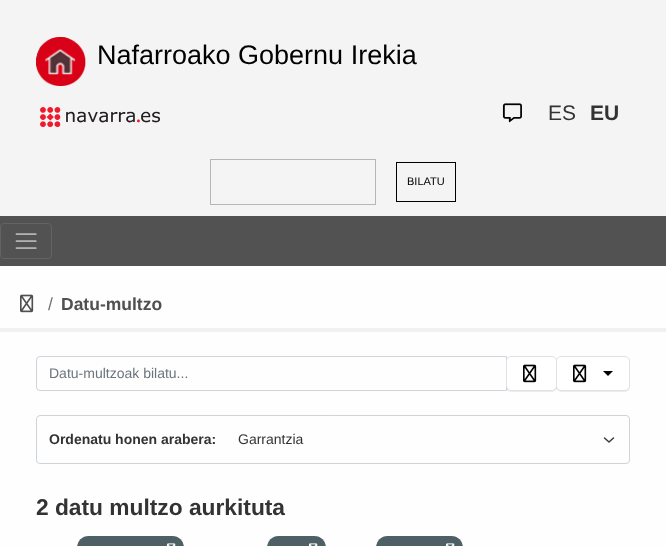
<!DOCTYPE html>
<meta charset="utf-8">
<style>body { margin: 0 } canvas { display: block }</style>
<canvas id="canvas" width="666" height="546"></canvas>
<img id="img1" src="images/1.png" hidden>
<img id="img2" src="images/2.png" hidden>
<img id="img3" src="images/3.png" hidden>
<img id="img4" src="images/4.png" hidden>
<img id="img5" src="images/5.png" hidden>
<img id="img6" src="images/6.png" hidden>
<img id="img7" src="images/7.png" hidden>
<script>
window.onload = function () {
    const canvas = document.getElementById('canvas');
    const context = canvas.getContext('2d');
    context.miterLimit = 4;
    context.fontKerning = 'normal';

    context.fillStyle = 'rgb(244, 244, 244)';
    context.fillRect(0, 0, 666, 546);
    context.drawImage(document.getElementById('img1'), 36, 37, 50, 49);
    context.drawImage(document.getElementById('img2'), 40, 107, 120, 20);
    context.drawImage(document.getElementById('img3'), 502, 103, 20, 20);
    context.strokeStyle = 'rgb(182, 182, 182)';
    context.strokeRect(210.5, 159.5, 165, 45);
    context.strokeStyle = 'rgb(0, 0, 0)';
    context.strokeRect(396.5, 162.5, 59, 39);
    context.fillStyle = 'rgb(82, 82, 82)';
    context.fillRect(0, 216, 666, 50);
    context.beginPath();
    context.roundRect(0.5, 223.5, 51, 35, 3.5);
    context.strokeStyle = 'rgb(99, 99, 99)';
    context.stroke();
    context.drawImage(document.getElementById('img4'), 15, 233, 22, 16);
    context.fillStyle = 'rgb(254, 254, 254)';
    context.fillRect(0, 266, 666, 280);
    context.drawImage(document.getElementById('img5'), 20, 294, 14, 19);
    context.strokeStyle = 'rgb(241, 241, 241)';
    context.lineWidth = 4;
    context.strokeRect(-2, 330, 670, 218);
    context.beginPath();
    context.roundRect(36.5, 356.5, 470, 34, [3.5, 0, 0, 3.5]);
    context.strokeStyle = 'rgb(206, 212, 218)';
    context.lineWidth = 1;
    context.stroke();
    context.fillStyle = 'rgba(0, 0, 0, 0.07)';
    context.filter = 'blur(0.5px)';
    context.beginPath();
    context.roundRect(506, 357, 51, 35, 5);
    context.fill();
    context.filter = 'none';
    context.fillStyle = 'rgb(255, 255, 255)';
    context.beginPath();
    context.roundRect(506.5, 356.5, 50, 34, 4.5);
    context.fill();
    context.strokeStyle = 'rgb(222, 226, 230)';
    context.stroke();
    context.drawImage(document.getElementById('img6'), 523, 364, 14, 19);
    context.fillStyle = 'rgba(0, 0, 0, 0.07)';
    context.filter = 'blur(0.5px)';
    context.beginPath();
    context.roundRect(556, 357, 74, 35, 5);
    context.fill();
    context.filter = 'none';
    context.fillStyle = 'rgb(255, 255, 255)';
    context.beginPath();
    context.roundRect(556.5, 356.5, 73, 34, 4.5);
    context.fill();
    context.stroke();
    context.drawImage(document.getElementById('img6'), 573, 364, 14, 19);
    context.fillStyle = 'rgb(0, 0, 0)';
    context.beginPath();
    context.moveTo(603, 371);
    context.lineTo(613, 371);
    context.lineTo(608, 376);
    context.closePath();
    context.fill();
    context.beginPath();
    context.moveTo(604.5, 438);
    context.lineTo(609, 442);
    context.lineTo(613.5, 438);
    context.strokeStyle = 'rgb(52, 58, 64)';
    context.lineWidth = 1.5;
    context.lineCap = 'round';
    context.lineJoin = 'round';
    context.stroke();
    context.beginPath();
    context.roundRect(36.5, 415.5, 593, 48, 3.5);
    context.strokeStyle = 'rgb(206, 212, 218)';
    context.lineWidth = 1;
    context.lineJoin = 'miter';
    context.stroke();
    context.fillStyle = 'rgb(78, 95, 101)';
    context.beginPath();
    context.roundRect(77, 536, 107, 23, 12.5);
    context.fill();
    context.drawImage(document.getElementById('img7'), 167, 543, 9, 3);
    context.beginPath();
    context.roundRect(267, 536, 59, 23, 12.5);
    context.fill();
    context.drawImage(document.getElementById('img7'), 309, 543, 9, 3);
    context.beginPath();
    context.roundRect(376, 536, 87, 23, 12.5);
    context.fill();
    context.drawImage(document.getElementById('img7'), 446, 543, 9, 3);
    context.font = '27px Liberation Sans';
    context.fillStyle = 'rgb(0, 0, 0)';
    context.fillText('Nafarroako Gobernu Irekia', 97, 64);
    context.font = '21px Liberation Sans';
    context.fillStyle = 'rgb(51, 51, 51)';
    context.fillText('ES', 548, 120);
    context.font = 'bold 21px Liberation Sans';
    context.fillText('EU', 590, 120);
    context.font = '11px Liberation Sans';
    context.fillStyle = 'rgb(0, 0, 0)';
    context.fillText('BILATU', 407, 185);
    context.font = '17.5px Liberation Sans';
    context.fillStyle = 'rgb(108, 117, 125)';
    context.fillText('/', 48, 310);
    context.font = 'bold 17.5px Liberation Sans';
    context.fillStyle = 'rgb(80, 80, 80)';
    context.fillText('Datu-multzo', 61, 310);
    context.font = '14px Liberation Sans';
    context.fillStyle = 'rgb(108, 117, 125)';
    context.fillText('Datu-multzoak bilatu...', 49, 378);
    context.font = 'bold 14px Liberation Sans';
    context.fillStyle = 'rgb(51, 51, 51)';
    context.fillText('Ordenatu honen arabera:', 49, 444);
    context.font = '14px Liberation Sans';
    context.fillText('Garrantzia', 238, 444);
    context.font = 'bold 22.75px Liberation Sans';
    context.fillText('2 datu multzo aurkituta', 36, 515);
};
</script>
